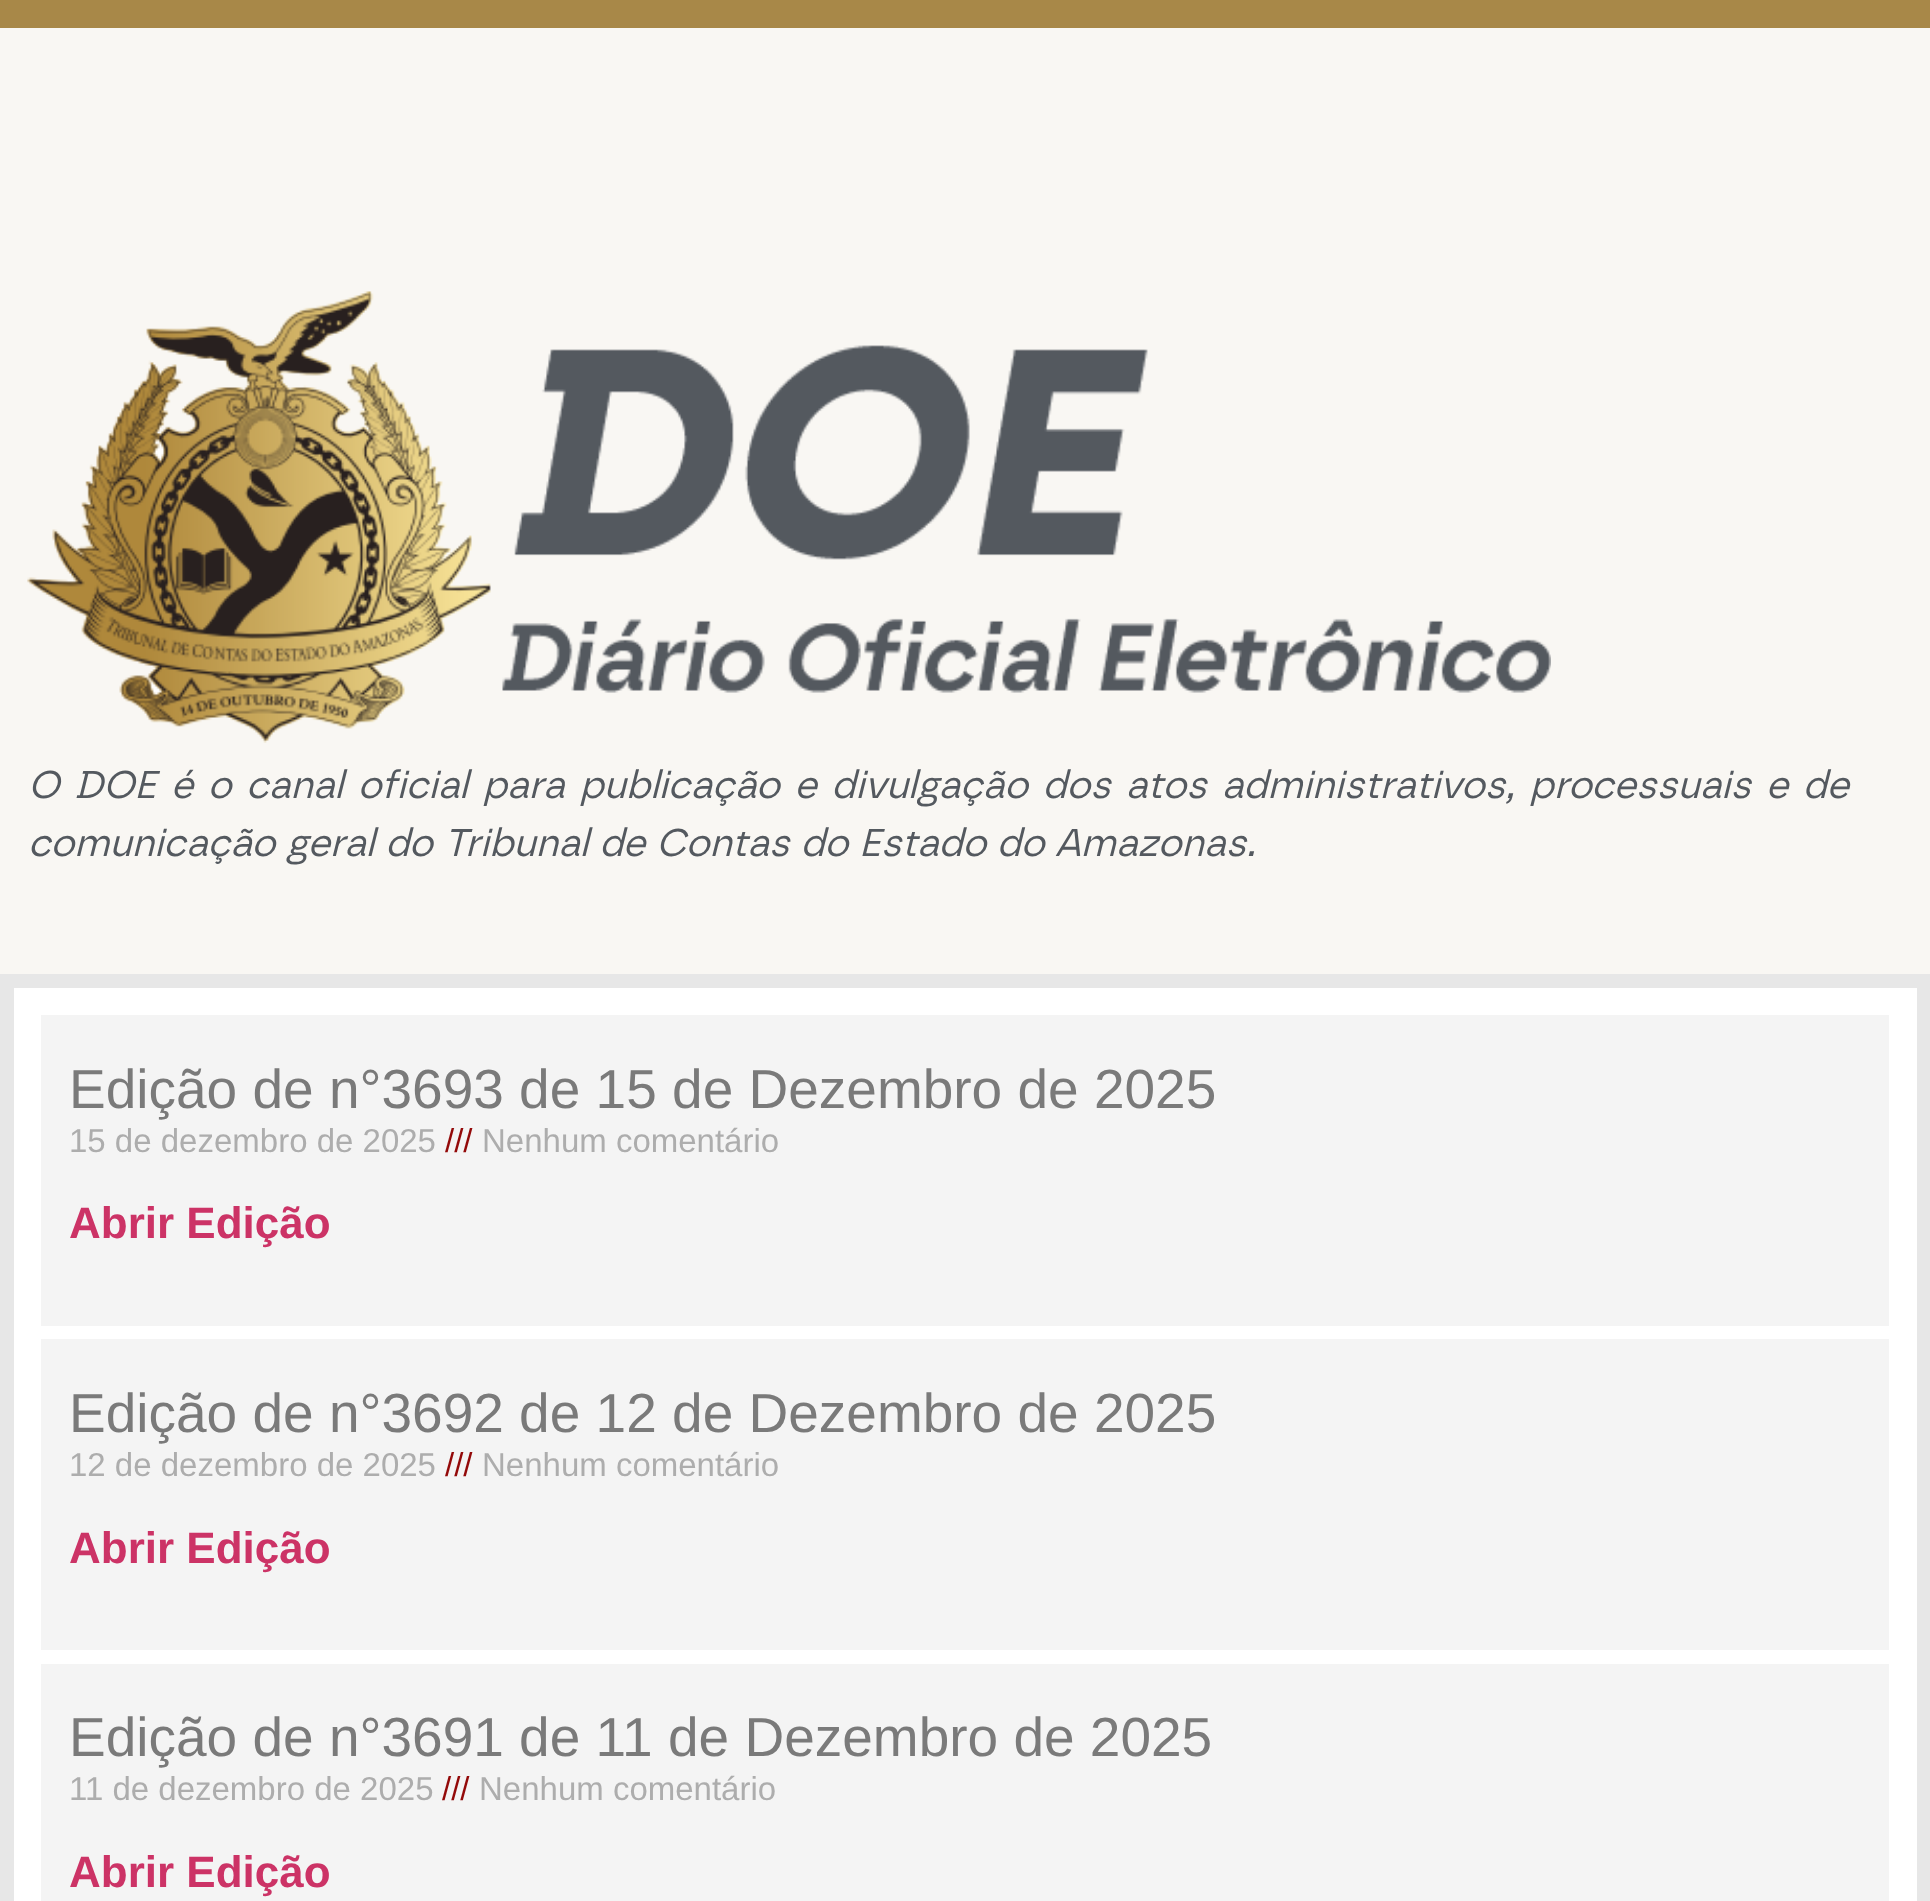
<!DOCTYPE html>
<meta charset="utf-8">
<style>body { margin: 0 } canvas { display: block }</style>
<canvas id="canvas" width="1930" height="1901"></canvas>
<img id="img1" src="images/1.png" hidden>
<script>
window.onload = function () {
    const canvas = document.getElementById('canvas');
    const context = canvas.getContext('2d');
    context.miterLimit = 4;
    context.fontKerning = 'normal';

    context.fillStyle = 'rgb(255, 255, 255)';
    context.fillRect(0, 0, 1930, 1901);
    context.fillStyle = 'rgb(168, 136, 72)';
    context.fillRect(0, 0, 1930, 28);
    context.fillStyle = 'rgb(249, 247, 243)';
    context.fillRect(0, 28, 1930, 946);
    context.drawImage(document.getElementById('img1'), 27, 291, 1524, 452);
    context.strokeStyle = 'rgb(231, 231, 231)';
    context.lineWidth = 14;
    context.strokeRect(7, 981, 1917, 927);
    context.fillStyle = 'rgb(244, 244, 244)';
    context.fillRect(41, 1015, 1848, 311);
    context.fillRect(41, 1339, 1848, 311);
    context.fillRect(41, 1664, 1848, 237);
    context.wordSpacing = '3.9px';
    context.font = 'italic 38.5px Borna';
    context.fillStyle = 'rgb(84, 89, 95)';
    context.fillText('O DOE é o canal oficial para publicação e divulgação dos atos administrativos, processuais e de', 28, 798);
    context.wordSpacing = '0px';
    context.fillText('comunicação geral do Tribunal de Contas do Estado do Amazonas.', 28, 856);
    context.font = '55px Liberation Sans';
    context.fillStyle = 'rgb(122, 122, 122)';
    context.fillText('Edição de n°3693 de 15 de Dezembro de 2025', 69, 1108);
    context.font = '33px Liberation Sans';
    context.fillStyle = 'rgb(173, 173, 173)';
    context.fillText('15 de dezembro de 2025', 69, 1152);
    context.fillStyle = 'rgb(147, 9, 9)';
    context.fillText('///', 445, 1152);
    context.fillStyle = 'rgb(173, 173, 173)';
    context.fillText('Nenhum comentário', 482, 1152);
    context.font = 'bold 44px Liberation Sans';
    context.fillStyle = 'rgb(204, 51, 102)';
    context.fillText('Abrir Edição', 69, 1238);
    context.font = '55px Liberation Sans';
    context.fillStyle = 'rgb(122, 122, 122)';
    context.fillText('Edição de n°3692 de 12 de Dezembro de 2025', 69, 1432);
    context.font = '33px Liberation Sans';
    context.fillStyle = 'rgb(173, 173, 173)';
    context.fillText('12 de dezembro de 2025', 69, 1476);
    context.fillStyle = 'rgb(147, 9, 9)';
    context.fillText('///', 445, 1476);
    context.fillStyle = 'rgb(173, 173, 173)';
    context.fillText('Nenhum comentário', 482, 1476);
    context.font = 'bold 44px Liberation Sans';
    context.fillStyle = 'rgb(204, 51, 102)';
    context.fillText('Abrir Edição', 69, 1563);
    context.font = '55px Liberation Sans';
    context.fillStyle = 'rgb(122, 122, 122)';
    context.fillText('Edição de n°3691 de 11 de Dezembro de 2025', 69, 1756);
    context.font = '33px Liberation Sans';
    context.fillStyle = 'rgb(173, 173, 173)';
    context.fillText('11 de dezembro de 2025', 69, 1800);
    context.fillStyle = 'rgb(147, 9, 9)';
    context.fillText('///', 442, 1800);
    context.fillStyle = 'rgb(173, 173, 173)';
    context.fillText('Nenhum comentário', 479, 1800);
    context.font = 'bold 44px Liberation Sans';
    context.fillStyle = 'rgb(204, 51, 102)';
    context.fillText('Abrir Edição', 69, 1887);
};
</script>
